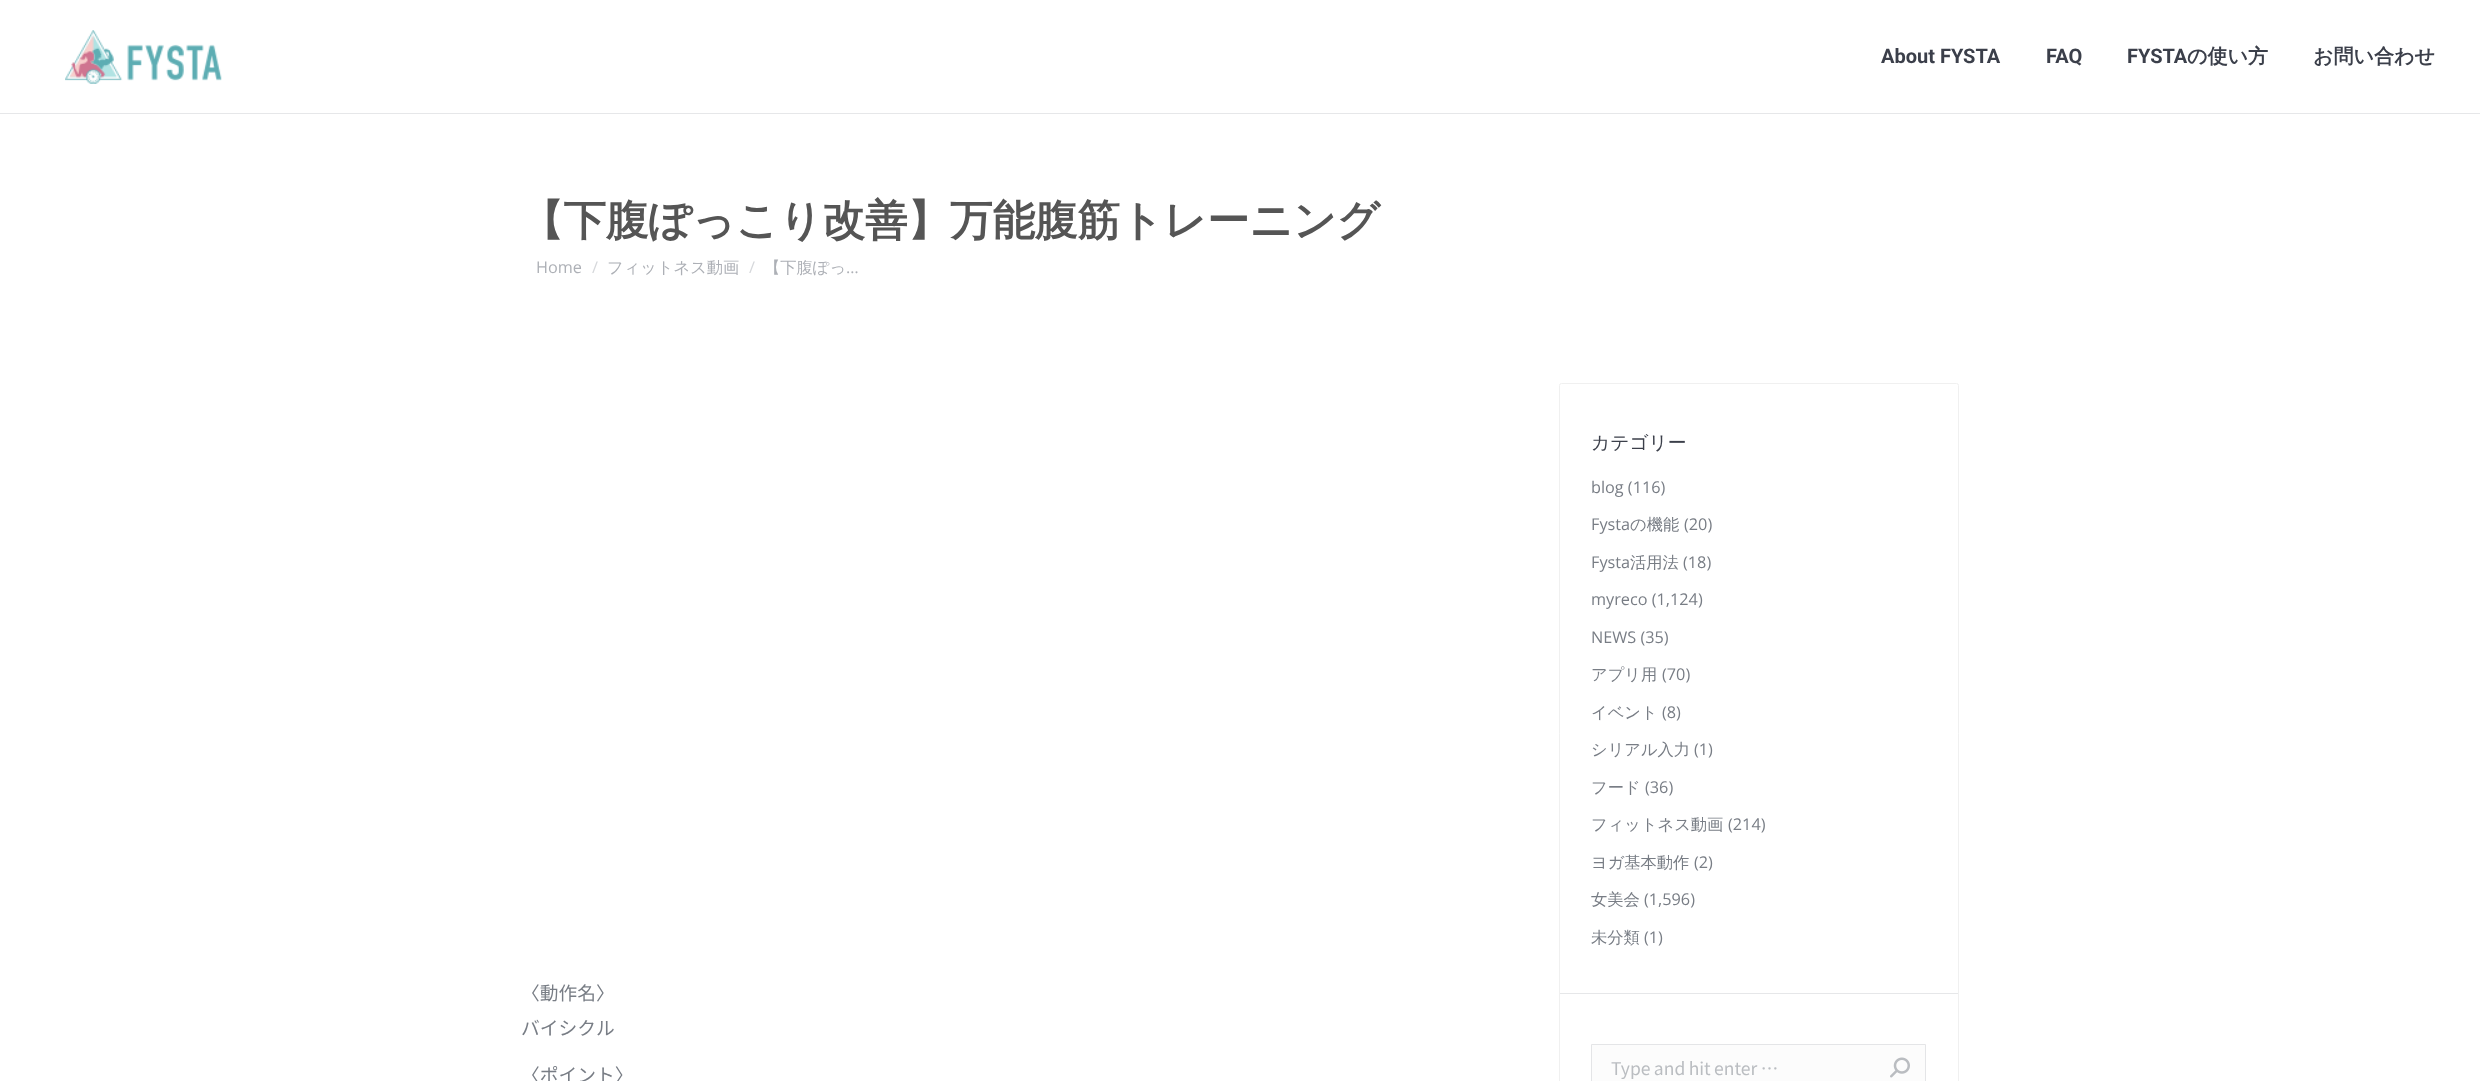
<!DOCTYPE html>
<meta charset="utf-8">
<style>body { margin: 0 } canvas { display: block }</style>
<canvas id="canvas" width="2480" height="1081"></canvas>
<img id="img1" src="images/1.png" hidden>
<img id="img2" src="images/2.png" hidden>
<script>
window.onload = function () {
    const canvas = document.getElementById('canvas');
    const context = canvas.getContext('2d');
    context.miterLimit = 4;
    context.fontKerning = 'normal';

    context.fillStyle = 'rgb(255, 255, 255)';
    context.fillRect(0, 0, 2480, 1081);
    context.fillStyle = 'rgb(230, 231, 233)';
    context.fillRect(0, 113, 2480, 1);
    context.drawImage(document.getElementById('img1'), 65, 30, 157, 54);
    context.beginPath();
    context.roundRect(1559.5, 383.5, 399, 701, 2);
    context.strokeStyle = 'rgb(240, 240, 240)';
    context.stroke();
    context.fillRect(1560, 993, 398, 1);
    context.fillStyle = 'rgb(252, 252, 252)';
    context.beginPath();
    context.rect(1591.5, 1044.5, 334, 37);
    context.fill();
    context.strokeStyle = 'rgb(228, 229, 231)';
    context.stroke();
    context.drawImage(document.getElementById('img2'), 1890, 1057, 20, 21);
    context.font = 'bold 20px Roboto';
    context.fillStyle = 'rgb(59, 63, 74)';
    context.fillText('About FYSTA', 1881, 63);
    context.fillText('FAQ', 2046, 63);
    context.fillText('FYSTA', 2127, 63);
    context.font = 'bold 20px WenQuanYi Zen Hei';
    context.fillText('の使い方', 2187, 63);
    context.fillText('お問い合わせ', 2313, 63);
    context.font = 'bold 42.5px WenQuanYi Zen Hei';
    context.fillStyle = 'rgb(85, 85, 85)';
    context.fillText('【下腹ぽっこり改善】万能腹筋トレーニング', 521, 235);
    context.font = '16.25px Open Sans';
    context.fillStyle = 'rgb(173, 176, 182)';
    context.fillText('Home', 536, 273);
    context.fillStyle = 'rgb(214, 216, 219)';
    context.fillText('/', 592, 273);
    context.font = '500 16.25px WenQuanYi Zen Hei';
    context.fillStyle = 'rgb(173, 176, 182)';
    context.fillText('フィットネス動画', 607, 273);
    context.font = '16.25px Open Sans';
    context.fillStyle = 'rgb(214, 216, 219)';
    context.fillText('/', 749, 273);
    context.font = '500 16.25px WenQuanYi Zen Hei';
    context.fillStyle = 'rgb(173, 176, 182)';
    context.fillText('【下腹ぽっ', 764, 273);
    context.font = '16.25px Open Sans';
    context.fillText('…', 846, 273);
    context.font = '18.75px Noto Sans JP';
    context.fillStyle = 'rgb(120, 125, 133)';
    context.fillText('〈動作名〉', 521, 1000);
    context.fillText('バイシクル', 521, 1035);
    context.fillText('〈ポイント〉', 521, 1082);
    context.font = '500 18.75px WenQuanYi Zen Hei';
    context.fillStyle = 'rgb(59, 63, 74)';
    context.fillText('カテゴリー', 1591, 449);
    context.font = '16.25px Open Sans';
    context.fillStyle = 'rgb(120, 125, 133)';
    context.fillText('blog (116)', 1591, 493);
    context.fillText('Fysta', 1591, 530);
    context.font = '500 16.25px WenQuanYi Zen Hei';
    context.fillText('の機能', 1630, 530);
    context.font = '16.25px Open Sans';
    context.fillText('(20)', 1684, 530);
    context.fillText('Fysta', 1591, 568);
    context.font = '500 16.25px WenQuanYi Zen Hei';
    context.fillText('活用法', 1630, 568);
    context.font = '16.25px Open Sans';
    context.fillText('(18)', 1683, 568);
    context.fillText('myreco (1,124)', 1591, 605);
    context.fillText('NEWS (35)', 1591, 643);
    context.font = '500 16.25px WenQuanYi Zen Hei';
    context.fillText('アプリ用', 1591, 680);
    context.font = '16.25px Open Sans';
    context.fillText('(70)', 1662, 680);
    context.font = '500 16.25px WenQuanYi Zen Hei';
    context.fillText('イベント', 1591, 718);
    context.font = '16.25px Open Sans';
    context.fillText('(8)', 1662, 718);
    context.font = '500 16.25px WenQuanYi Zen Hei';
    context.fillText('シリアル入力', 1591, 755);
    context.font = '16.25px Open Sans';
    context.fillText('(1)', 1694, 755);
    context.font = '500 16.25px WenQuanYi Zen Hei';
    context.fillText('フード', 1591, 793);
    context.font = '16.25px Open Sans';
    context.fillText('(36)', 1645, 793);
    context.font = '500 16.25px WenQuanYi Zen Hei';
    context.fillText('フィットネス動画', 1591, 830);
    context.font = '16.25px Open Sans';
    context.fillText('(214)', 1728, 830);
    context.font = '500 16.25px WenQuanYi Zen Hei';
    context.fillText('ヨガ基本動作', 1591, 868);
    context.font = '16.25px Open Sans';
    context.fillText('(2)', 1694, 868);
    context.font = '500 16.25px WenQuanYi Zen Hei';
    context.fillText('女美会', 1591, 905);
    context.font = '16.25px Open Sans';
    context.fillText('(1,596)', 1644, 905);
    context.font = '500 16.25px WenQuanYi Zen Hei';
    context.fillText('未分類', 1591, 943);
    context.font = '16.25px Open Sans';
    context.fillText('(1)', 1644, 943);
    context.wordSpacing = '-0.5px';
    context.font = '17.5px "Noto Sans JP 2"';
    context.fillStyle = 'rgb(186, 189, 193)';
    context.fillText('Type and hit enter …', 1611, 1075);
};
</script>
